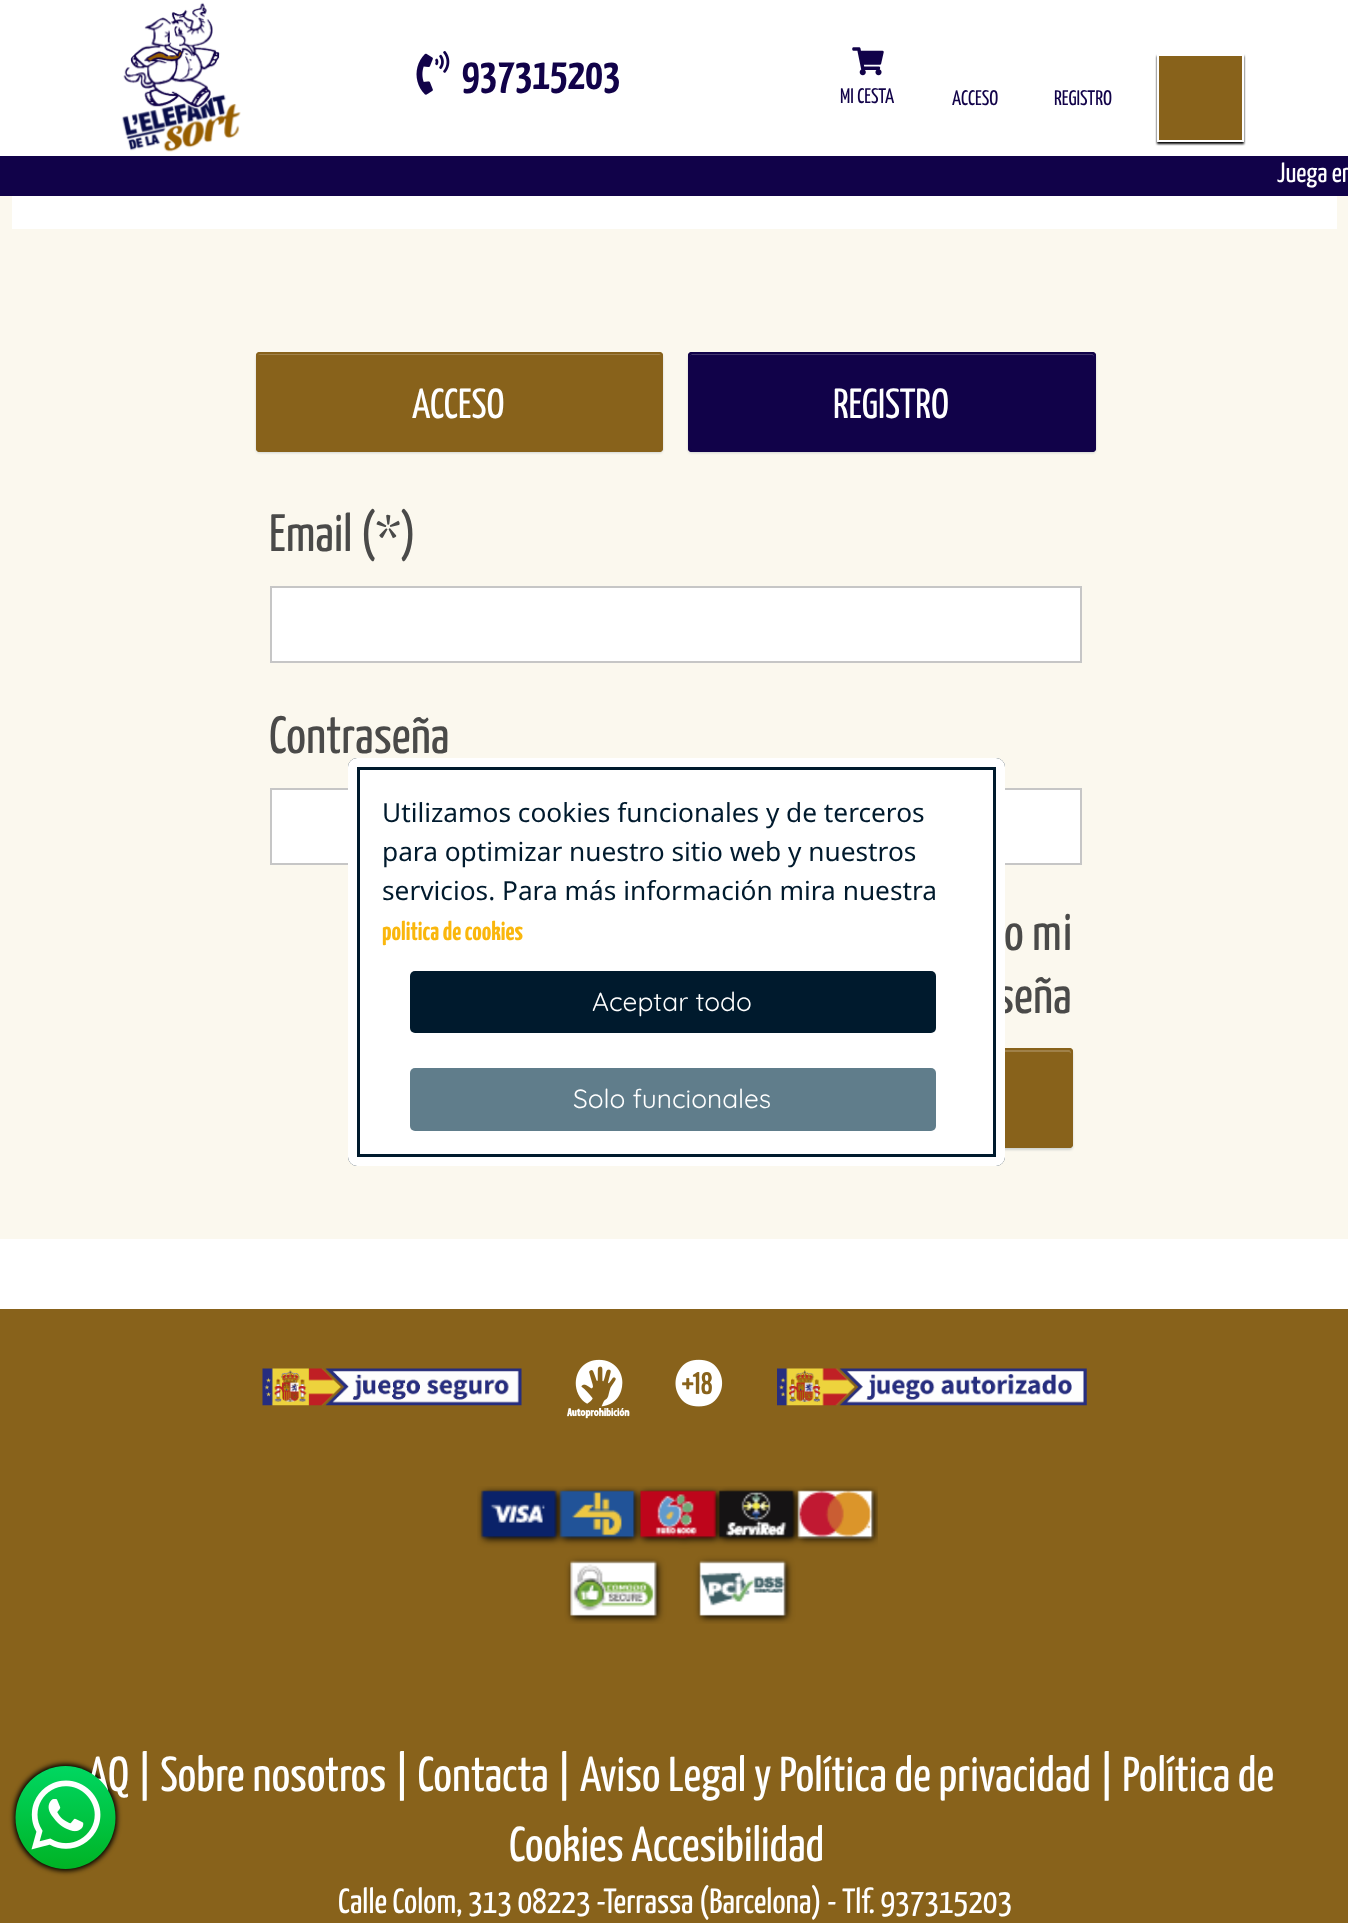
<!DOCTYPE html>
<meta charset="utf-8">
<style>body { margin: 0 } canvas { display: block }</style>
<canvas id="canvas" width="1348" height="1923"></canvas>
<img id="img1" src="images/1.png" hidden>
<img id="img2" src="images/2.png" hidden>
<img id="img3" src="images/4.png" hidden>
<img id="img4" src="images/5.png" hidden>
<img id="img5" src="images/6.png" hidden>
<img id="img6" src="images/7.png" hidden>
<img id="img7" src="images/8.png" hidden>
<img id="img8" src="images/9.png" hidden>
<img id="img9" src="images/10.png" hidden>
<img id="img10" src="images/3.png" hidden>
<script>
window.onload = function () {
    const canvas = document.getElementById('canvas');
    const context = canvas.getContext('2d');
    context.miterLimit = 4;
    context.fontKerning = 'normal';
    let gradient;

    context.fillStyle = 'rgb(255, 255, 255)';
    context.fillRect(0, 0, 1348, 1923);
    context.fillStyle = 'rgb(251, 248, 238)';
    context.fillRect(0, 196, 1348, 1043);
    context.drawImage(document.getElementById('img1'), 121, 2, 120, 150);
    context.drawImage(document.getElementById('img2'), 416, 51, 34, 44);
    context.fillStyle = 'rgb(136, 98, 27)';
    context.fillRect(0, 1309, 1348, 614);
    context.fillStyle = 'rgb(0, 0, 0)';
    context.filter = 'blur(2.5px)';
    context.beginPath();
    context.roundRect(14, 1764, 103, 107, 51.5);
    context.fill();
    context.filter = 'none';
    context.drawImage(document.getElementById('img3'), 852, 47, 32, 29);
    context.filter = 'blur(1px)';
    context.beginPath();
    context.rect(1157, 56, 87, 88);
    context.fill();
    context.filter = 'none';
    context.fillStyle = 'rgb(136, 98, 27)';
    context.beginPath();
    context.rect(1158, 55, 85, 86);
    context.fill();
    context.strokeStyle = 'rgb(255, 255, 255)';
    context.lineWidth = 2;
    context.stroke();
    context.fillStyle = 'rgb(17, 2, 73)';
    context.fillRect(0, 156, 1348, 40);
    context.fillStyle = 'rgb(255, 255, 255)';
    context.fillRect(12, 196, 1325, 33);
    context.fillStyle = 'rgba(38, 69, 95, 0.2)';
    context.filter = 'blur(1px)';
    context.beginPath();
    context.roundRect(256, 354, 407, 99, 4);
    context.fill();
    context.filter = 'none';
    context.fillStyle = 'rgb(136, 98, 27)';
    context.beginPath();
    context.roundRect(256, 352, 407, 100, 4);
    context.fill();
    context.fillStyle = 'rgb(160, 129, 73)';
    context.beginPath();
    context.moveTo(259, 355);
    context.lineTo(660, 355);
    context.bezierCurveTo(661, 355, 662, 356, 662, 357);
    context.lineTo(662, 355);
    context.lineTo(660, 354);
    context.lineTo(258, 354);
    context.bezierCurveTo(257, 355, 257, 356, 257, 357);
    context.bezierCurveTo(257, 356, 258, 355, 259, 355);
    context.closePath();
    context.fill();
    context.beginPath();
    context.roundRect(257, 353, 405, 98, 3);
    context.strokeStyle = 'rgb(136, 98, 27)';
    context.stroke();
    context.fillStyle = 'rgba(38, 69, 95, 0.2)';
    context.filter = 'blur(1px)';
    context.beginPath();
    context.roundRect(688, 354, 408, 99, 4);
    context.fill();
    context.filter = 'none';
    context.fillStyle = 'rgb(17, 2, 73)';
    context.beginPath();
    context.roundRect(688, 352, 408, 100, 4);
    context.fill();
    context.fillStyle = 'rgb(65, 53, 109)';
    context.beginPath();
    context.moveTo(691, 355);
    context.lineTo(1092, 355);
    context.bezierCurveTo(1093, 355, 1094, 356, 1094, 357);
    context.bezierCurveTo(1094, 356, 1094, 355, 1093, 354);
    context.lineTo(692, 354);
    context.lineTo(690, 355);
    context.lineTo(690, 357);
    context.bezierCurveTo(690, 356, 690, 355, 691, 355);
    context.closePath();
    context.fill();
    context.beginPath();
    context.roundRect(689, 353, 406, 98, 3);
    context.strokeStyle = 'rgb(17, 2, 73)';
    context.stroke();
    context.fillStyle = 'rgb(255, 255, 255)';
    context.beginPath();
    context.rect(271, 587, 810, 75);
    context.fill();
    context.strokeStyle = 'rgb(198, 198, 198)';
    context.stroke();
    context.beginPath();
    context.rect(271, 789, 810, 75);
    context.fill();
    context.stroke();
    context.fillStyle = 'rgba(38, 69, 95, 0.2)';
    context.filter = 'blur(1px)';
    context.beginPath();
    context.roundRect(667, 1050, 406, 100, 4);
    context.fill();
    context.filter = 'none';
    context.fillStyle = 'rgb(136, 98, 27)';
    context.beginPath();
    context.roundRect(667, 1048, 406, 100, 4);
    context.fill();
    context.fillStyle = 'rgb(160, 129, 73)';
    context.beginPath();
    context.moveTo(670, 1052);
    context.lineTo(1069, 1052);
    context.bezierCurveTo(1070, 1052, 1071, 1053, 1071, 1054);
    context.bezierCurveTo(1071, 1053, 1071, 1051, 1070, 1050);
    context.lineTo(671, 1050);
    context.bezierCurveTo(670, 1050, 669, 1051, 669, 1052);
    context.closePath();
    context.fill();
    context.beginPath();
    context.roundRect(668, 1049, 404, 98, 3);
    context.strokeStyle = 'rgb(136, 98, 27)';
    context.stroke();
    context.drawImage(document.getElementById('img4'), 262, 1368, 260, 38);
    context.drawImage(document.getElementById('img5'), 575, 1359, 48, 48);
    context.drawImage(document.getElementById('img6'), 567, 1408, 63, 11);
    context.drawImage(document.getElementById('img7'), 675, 1359, 48, 48);
    context.drawImage(document.getElementById('img8'), 777, 1368, 310, 38);
    context.drawImage(document.getElementById('img9'), 477, 1486, 401, 138);
    context.font = 'bold 44px Yanone Kaffeesatz';
    context.fillStyle = 'rgb(17, 2, 73)';
    context.fillText('937315203', 462, 89);
    context.font = '21px Yanone Kaffeesatz';
    context.fillText('MI CESTA', 840, 103);
    context.fillText('ACCESO', 952, 105);
    context.fillText('REGISTRO', 1054, 105);
    context.font = '28px Yanone Kaffeesatz';
    context.fillStyle = 'rgb(255, 255, 255)';
    context.fillText('Juega en', 1277, 182);
    context.font = '42px Yanone Kaffeesatz';
    context.fillText('ACCESO', 412, 418);
    context.fillText('REGISTRO', 833, 418);
    context.font = '52.5px Yanone Kaffeesatz';
    context.fillStyle = 'rgb(74, 74, 73)';
    context.fillText('Email (*)', 269, 551);
    context.fillText('Contraseña', 269, 753);
    context.fillText('o mi', 1004, 950);
    context.fillText('seña', 996, 1013);
    context.fillStyle = 'rgb(255, 255, 255)';
    context.beginPath();
    context.roundRect(354, 764, 645, 396, 3);
    context.fill();
    context.strokeStyle = 'rgb(0, 26, 45)';
    context.lineWidth = 12;
    context.stroke();
    context.beginPath();
    context.roundRect(352.5, 762.5, 648, 399, 4.5);
    context.strokeStyle = 'rgb(255, 255, 255)';
    context.lineWidth = 9;
    context.stroke();
    context.font = '26.25px Noto Sans';
    context.fillStyle = 'rgb(0, 26, 45)';
    context.fillText('Utilizamos cookies funcionales y de terceros', 382, 822);
    context.fillText('para optimizar nuestro sitio web y nuestros', 382, 861);
    context.fillText('servicios. Para más información mira nuestra', 382, 900);
    context.font = 'bold 26.25px Yanone Kaffeesatz';
    context.fillStyle = 'rgb(250, 183, 13)';
    context.fillText('politica de cookies', 382, 940);
    context.fillStyle = 'rgb(0, 26, 45)';
    context.beginPath();
    context.roundRect(410, 971, 526, 62, 5);
    context.fill();
    context.font = '26.25px Quicksand';
    context.fillStyle = 'rgb(255, 255, 255)';
    context.fillText('Aceptar todo', 592, 1011);
    context.fillStyle = 'rgb(96, 125, 139)';
    context.beginPath();
    context.roundRect(410, 1068, 526, 63, 5);
    context.fill();
    context.fillStyle = 'rgb(255, 255, 255)';
    context.fillText('Solo funcionales', 573, 1108);
    context.font = '49px Yanone Kaffeesatz';
    context.fillText('AQ | Sobre nosotros | Contacta | Aviso Legal y Política de privacidad | Política de', 87, 1791);
    gradient = context.createLinearGradient(66, 1766, 66, 1869);
    gradient.addColorStop(0, 'rgb(0, 215, 97)');
    gradient.addColorStop(1, 'rgb(0, 179, 37)');
    context.fillStyle = gradient;
    context.beginPath();
    context.ellipse(65.5, 1817.5, 50, 51.5, 0, 0, 2 * Math.PI);
    context.fill();
    context.drawImage(document.getElementById('img10'), 31, 1780, 70, 70);
    context.fillStyle = 'rgb(255, 255, 255)';
    context.fillText('Cookies Accesibilidad', 509, 1861);
    context.font = '35px Yanone Kaffeesatz';
    context.fillText('Calle Colom, 313 08223 -Terrassa (Barcelona) - Tlf. 937315203', 338, 1913);
};
</script>
